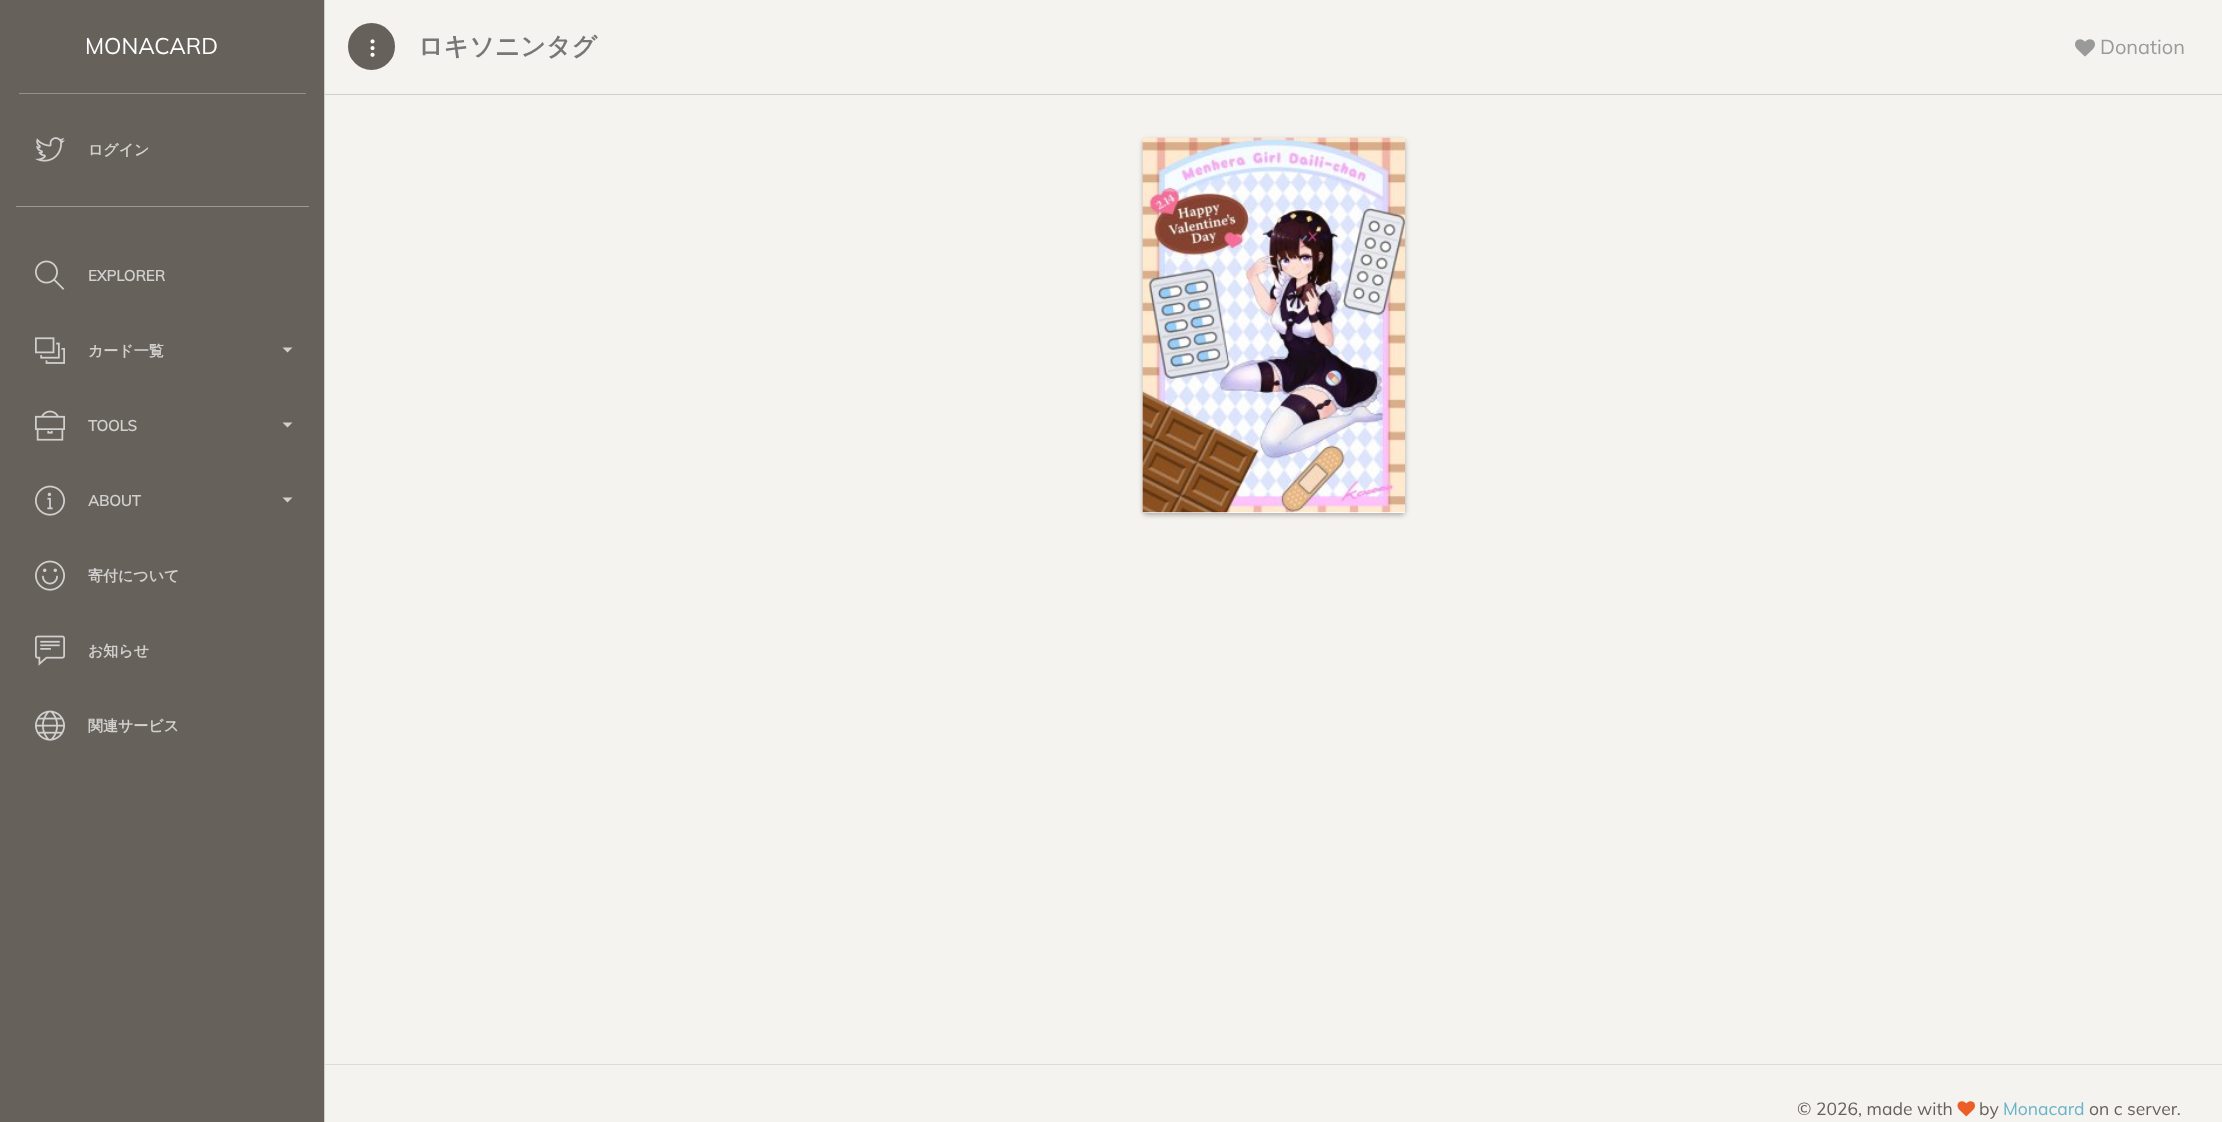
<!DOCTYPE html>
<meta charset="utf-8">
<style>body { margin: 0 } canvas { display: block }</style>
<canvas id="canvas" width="2222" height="1122"></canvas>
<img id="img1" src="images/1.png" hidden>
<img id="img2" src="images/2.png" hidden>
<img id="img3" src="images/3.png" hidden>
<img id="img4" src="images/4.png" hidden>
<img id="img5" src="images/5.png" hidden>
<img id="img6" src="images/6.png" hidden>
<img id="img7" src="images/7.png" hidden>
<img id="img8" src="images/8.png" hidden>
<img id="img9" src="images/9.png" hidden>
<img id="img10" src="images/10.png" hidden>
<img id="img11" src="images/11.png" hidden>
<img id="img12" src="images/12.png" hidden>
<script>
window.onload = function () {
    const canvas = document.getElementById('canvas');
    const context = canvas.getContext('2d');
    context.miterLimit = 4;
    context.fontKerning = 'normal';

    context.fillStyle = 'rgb(244, 243, 239)';
    context.fillRect(0, 0, 2222, 1122);
    context.fillStyle = 'rgb(102, 97, 91)';
    context.fillRect(0, 0, 324, 1122);
    context.fillStyle = 'rgb(207, 207, 202)';
    context.fillRect(324, 0, 1, 1122);
    context.fillStyle = 'rgb(148, 144, 140)';
    context.fillRect(19, 93, 287, 1);
    context.drawImage(document.getElementById('img1'), 35, 137, 30, 25);
    context.fillStyle = 'rgb(158, 152, 144)';
    context.fillRect(16, 206, 293, 1);
    context.drawImage(document.getElementById('img2'), 35, 260, 30, 30);
    context.drawImage(document.getElementById('img3'), 35, 337, 30, 27);
    context.fillStyle = 'rgb(209, 208, 206)';
    context.beginPath();
    context.moveTo(282.5, 347.5);
    context.lineTo(292.5, 347.5);
    context.lineTo(287.5, 352.5);
    context.closePath();
    context.fill();
    context.drawImage(document.getElementById('img4'), 35, 410, 30, 31);
    context.beginPath();
    context.moveTo(282.5, 422.5);
    context.lineTo(292.5, 422.5);
    context.lineTo(287.5, 427.5);
    context.closePath();
    context.fill();
    context.drawImage(document.getElementById('img5'), 35, 485, 30, 31);
    context.beginPath();
    context.moveTo(282.5, 497.5);
    context.lineTo(292.5, 497.5);
    context.lineTo(287.5, 502.5);
    context.closePath();
    context.fill();
    context.drawImage(document.getElementById('img6'), 35, 560, 30, 31);
    context.drawImage(document.getElementById('img7'), 35, 635, 30, 31);
    context.drawImage(document.getElementById('img8'), 35, 710, 30, 31);
    context.fillStyle = 'rgb(207, 207, 202)';
    context.fillRect(325, 94, 1897, 1);
    context.fillStyle = 'rgb(102, 97, 91)';
    context.beginPath();
    context.arc(371.5, 46.5, 22, 0, 2 * Math.PI);
    context.fill();
    context.strokeStyle = 'rgb(102, 97, 91)';
    context.lineWidth = 3;
    context.stroke();
    context.drawImage(document.getElementById('img9'), 370, 39, 5, 18);
    context.drawImage(document.getElementById('img10'), 2075, 39, 20, 18);
    context.fillStyle = 'rgba(0, 0, 0, 0.3)';
    context.filter = 'blur(2.5px)';
    context.beginPath();
    context.roundRect(1143, 140, 262, 375, 4);
    context.fill();
    context.filter = 'none';
    context.fillStyle = 'rgb(255, 255, 255)';
    context.fillRect(1143, 512, 262, 1);
    context.drawImage(document.getElementById('img11'), 1142, 137, 263, 376);
    context.fillStyle = 'rgb(220, 219, 215)';
    context.fillRect(325, 1064, 1897, 1);
    context.drawImage(document.getElementById('img12'), 1957, 1101, 18, 16);
    context.font = '22.5px Muli';
    context.fillStyle = 'rgb(255, 255, 255)';
    context.fillText('MONACARD', 85, 54);
    context.font = 'bold 15px WenQuanYi Zen Hei';
    context.fillStyle = 'rgb(209, 208, 206)';
    context.fillText('ログイン', 88, 155);
    context.font = 'bold 15px Muli';
    context.fillText('EXPLORER', 88, 281);
    context.font = 'bold 15px WenQuanYi Zen Hei';
    context.fillText('カード一覧', 88, 356);
    context.font = 'bold 15px Muli';
    context.fillText('TOOLS', 88, 431);
    context.fillText('ABOUT', 88, 506);
    context.font = 'bold 15px WenQuanYi Zen Hei';
    context.fillText('寄付について', 88, 581);
    context.fillText('お知らせ', 88, 656);
    context.fillText('関連サービス', 88, 731);
    context.font = 'bold 25px WenQuanYi Zen Hei';
    context.fillStyle = 'rgb(119, 119, 119)';
    context.fillText('ロキソニンタグ', 418, 55);
    context.font = '20px Muli';
    context.fillStyle = 'rgb(154, 154, 154)';
    context.fillText('Donation', 2100, 54);
    context.font = '17.5px Muli';
    context.fillStyle = 'rgb(102, 97, 91)';
    context.fillText('© 2026, made with', 1797, 1115);
    context.fillText('by', 1979, 1115);
    context.fillStyle = 'rgb(104, 179, 200)';
    context.fillText('Monacard', 2003, 1115);
    context.fillStyle = 'rgb(102, 97, 91)';
    context.fillText('on c server.', 2089, 1115);
};
</script>
